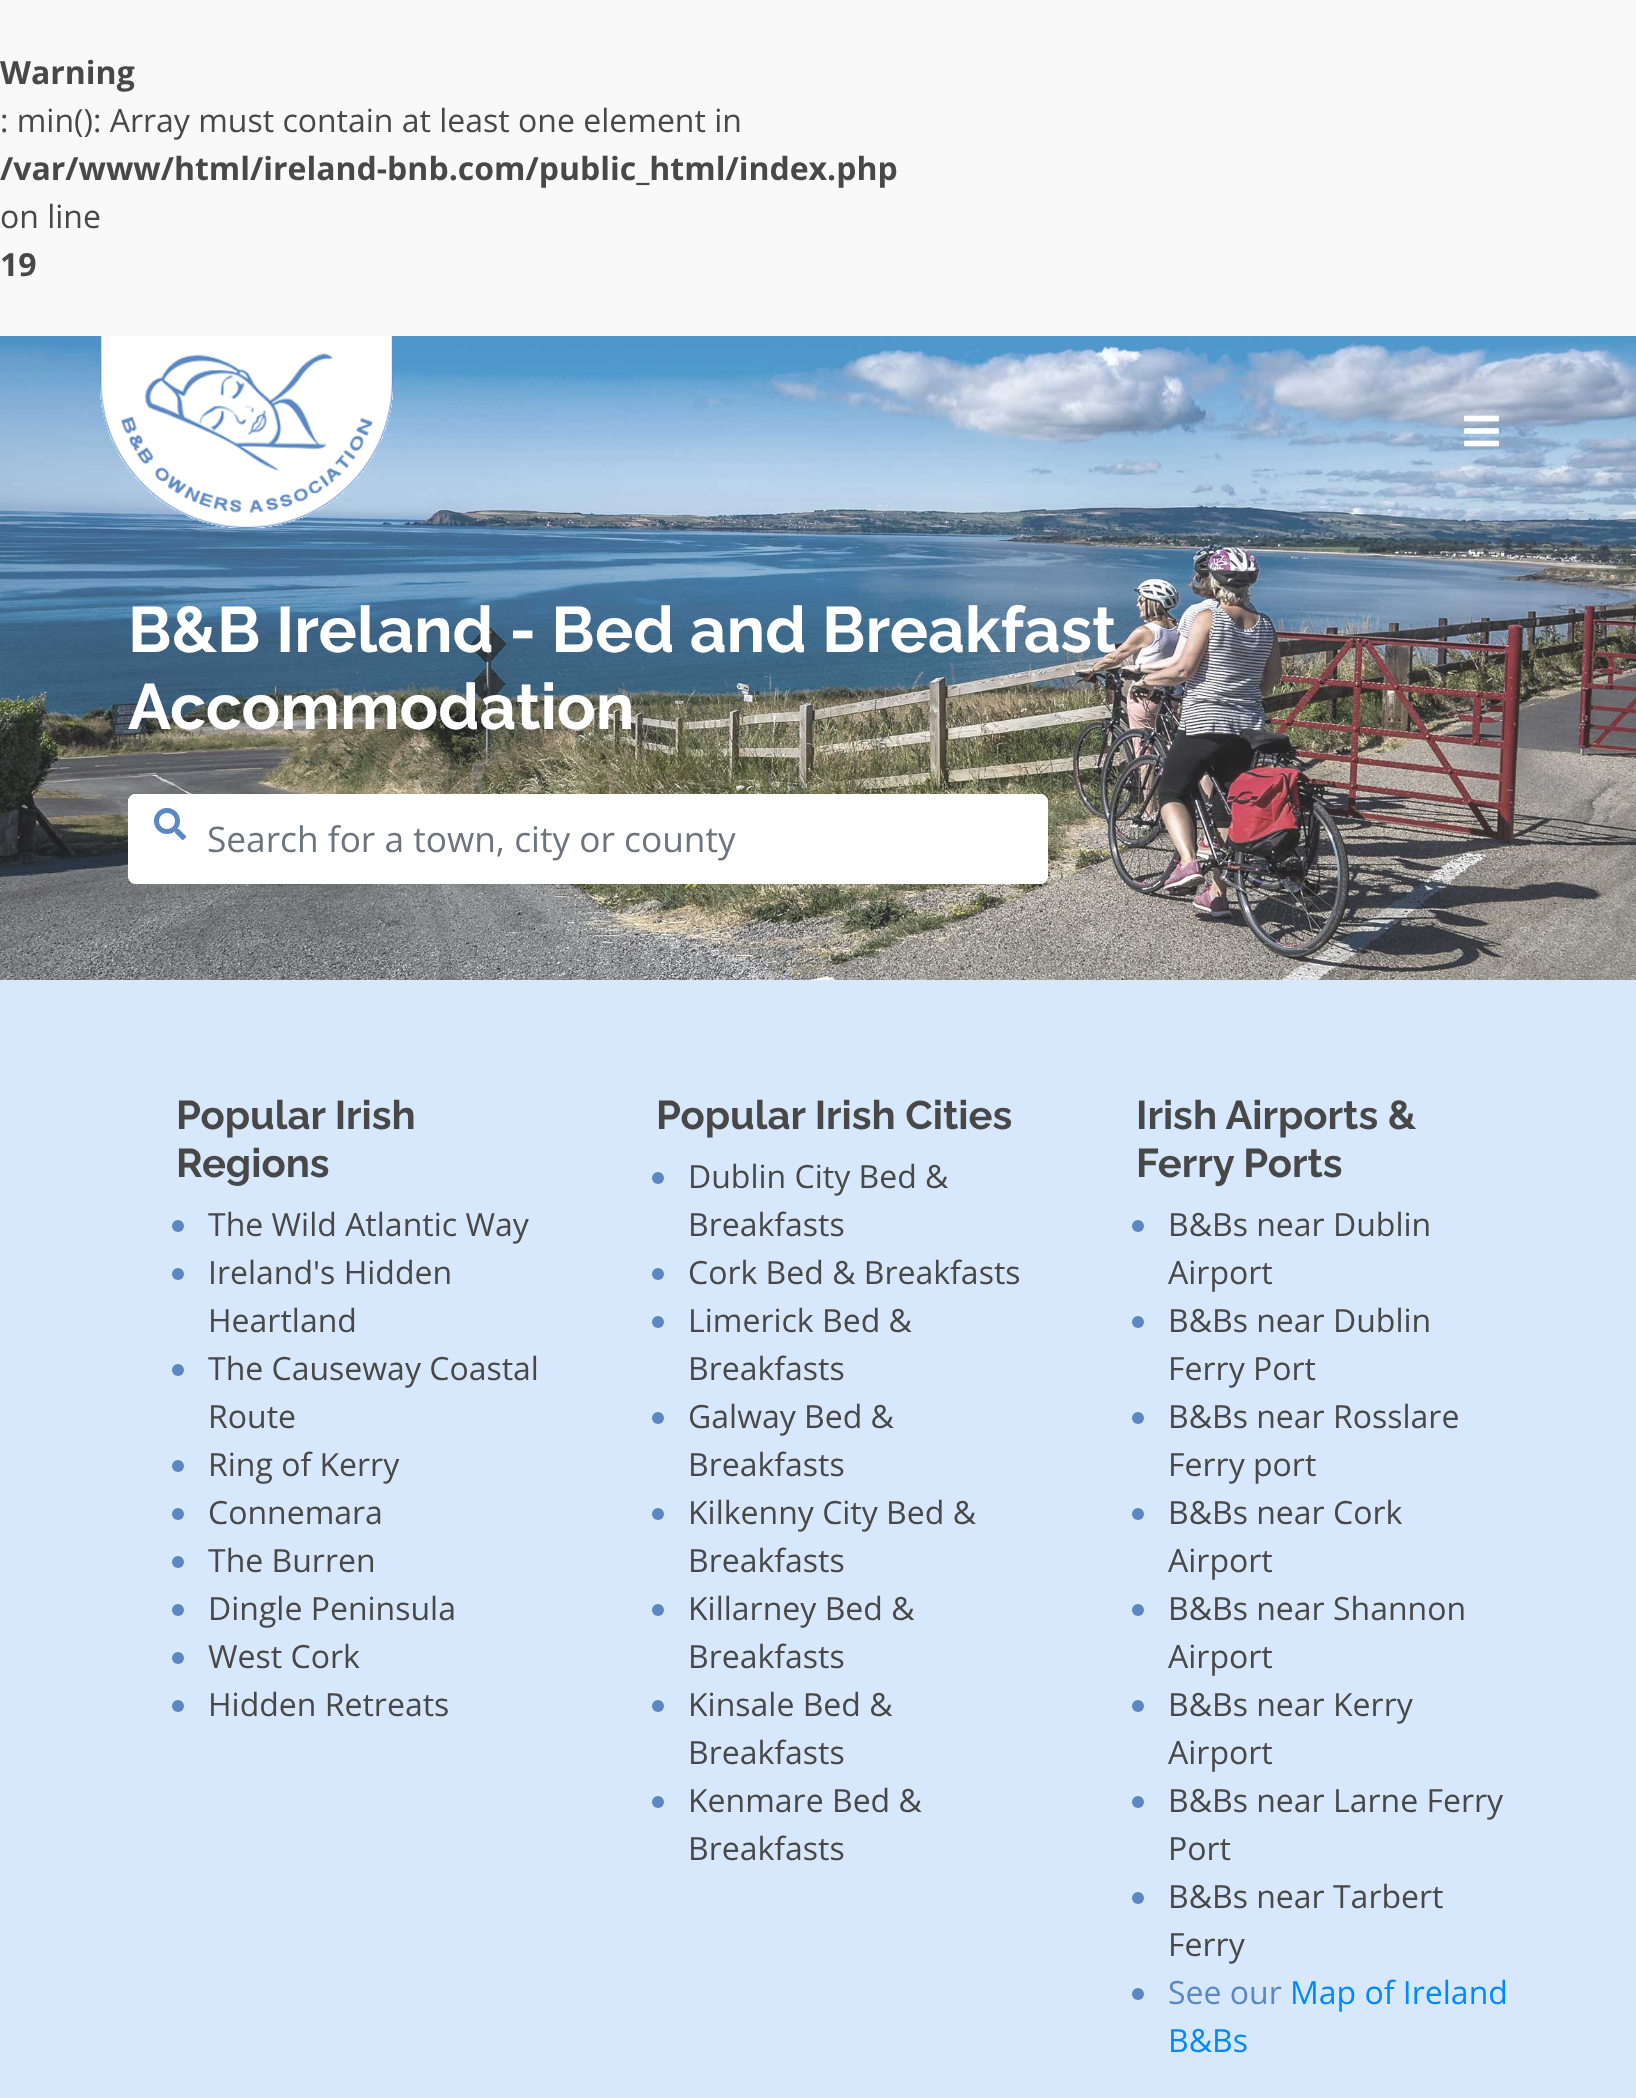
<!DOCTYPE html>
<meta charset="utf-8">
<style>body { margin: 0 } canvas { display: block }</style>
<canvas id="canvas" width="1636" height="2098"></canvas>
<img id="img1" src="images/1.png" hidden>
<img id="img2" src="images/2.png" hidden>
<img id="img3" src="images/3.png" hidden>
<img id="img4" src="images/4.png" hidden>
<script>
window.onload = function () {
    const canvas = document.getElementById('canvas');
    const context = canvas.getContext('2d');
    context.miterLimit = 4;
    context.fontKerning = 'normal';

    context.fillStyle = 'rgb(249, 249, 249)';
    context.fillRect(0, 0, 1636, 2098);
    context.drawImage(document.getElementById('img1'), 0, 336, 1636, 644);
    context.drawImage(document.getElementById('img2'), 100, 336, 293, 192);
    context.drawImage(document.getElementById('img3'), 1464, 415, 35, 32);
    context.fillStyle = 'rgb(255, 255, 255)';
    context.beginPath();
    context.roundRect(129, 795, 918, 88, 7);
    context.fill();
    context.strokeStyle = 'rgb(255, 255, 255)';
    context.lineWidth = 2;
    context.stroke();
    context.beginPath();
    context.roundRect(129, 795, 918, 88, 7);
    context.stroke();
    context.beginPath();
    context.roundRect(128, 794, 60, 60, [8, 0, 0, 8]);
    context.fill();
    context.drawImage(document.getElementById('img4'), 154, 808, 32, 32);
    context.fillStyle = 'rgb(216, 232, 252)';
    context.fillRect(0, 980, 1636, 1118);
    context.fillStyle = 'rgb(89, 136, 194)';
    context.beginPath();
    context.arc(178, 1226, 6, 0, 2 * Math.PI);
    context.fill();
    context.beginPath();
    context.arc(178, 1274, 6, 0, 2 * Math.PI);
    context.fill();
    context.beginPath();
    context.arc(178, 1370, 6, 0, 2 * Math.PI);
    context.fill();
    context.beginPath();
    context.arc(178, 1466, 6, 0, 2 * Math.PI);
    context.fill();
    context.beginPath();
    context.arc(178, 1514, 6, 0, 2 * Math.PI);
    context.fill();
    context.beginPath();
    context.arc(178, 1562, 6, 0, 2 * Math.PI);
    context.fill();
    context.beginPath();
    context.arc(178, 1610, 6, 0, 2 * Math.PI);
    context.fill();
    context.beginPath();
    context.arc(178, 1658, 6, 0, 2 * Math.PI);
    context.fill();
    context.beginPath();
    context.arc(178, 1706, 6, 0, 2 * Math.PI);
    context.fill();
    context.beginPath();
    context.arc(658, 1178, 6, 0, 2 * Math.PI);
    context.fill();
    context.beginPath();
    context.arc(658, 1274, 6, 0, 2 * Math.PI);
    context.fill();
    context.beginPath();
    context.arc(658, 1322, 6, 0, 2 * Math.PI);
    context.fill();
    context.beginPath();
    context.arc(658, 1418, 6, 0, 2 * Math.PI);
    context.fill();
    context.beginPath();
    context.arc(658, 1514, 6, 0, 2 * Math.PI);
    context.fill();
    context.beginPath();
    context.arc(658, 1610, 6, 0, 2 * Math.PI);
    context.fill();
    context.beginPath();
    context.arc(658, 1706, 6, 0, 2 * Math.PI);
    context.fill();
    context.beginPath();
    context.arc(658, 1802, 6, 0, 2 * Math.PI);
    context.fill();
    context.beginPath();
    context.arc(1138, 1226, 6, 0, 2 * Math.PI);
    context.fill();
    context.beginPath();
    context.arc(1138, 1322, 6, 0, 2 * Math.PI);
    context.fill();
    context.beginPath();
    context.arc(1138, 1418, 6, 0, 2 * Math.PI);
    context.fill();
    context.beginPath();
    context.arc(1138, 1514, 6, 0, 2 * Math.PI);
    context.fill();
    context.beginPath();
    context.arc(1138, 1610, 6, 0, 2 * Math.PI);
    context.fill();
    context.beginPath();
    context.arc(1138, 1706, 6, 0, 2 * Math.PI);
    context.fill();
    context.beginPath();
    context.arc(1138, 1802, 6, 0, 2 * Math.PI);
    context.fill();
    context.beginPath();
    context.arc(1138, 1898, 6, 0, 2 * Math.PI);
    context.fill();
    context.beginPath();
    context.arc(1138, 1994, 6, 0, 2 * Math.PI);
    context.fill();
    context.font = 'bold 32px Open Sans';
    context.fillStyle = 'rgb(72, 72, 72)';
    context.fillText('Warning', 0, 84);
    context.font = '32px Open Sans';
    context.fillText(': min(): Array must contain at least one element in', 0, 132);
    context.font = 'bold 32px Open Sans';
    context.fillText('/var/www/html/ireland-bnb.com/public_html/index.php', 0, 180);
    context.font = '32px Open Sans';
    context.fillText('on line', 0, 228);
    context.font = 'bold 32px Open Sans';
    context.fillText('19', 0, 276);
    context.font = 'bold 64px Raleway';
    context.fillStyle = 'rgb(255, 255, 255)';
    context.fillText('B&B Ireland - Bed and Breakfast', 128, 652);
    context.fillText('Accommodation', 128, 729);
    context.font = '35.25px Open Sans';
    context.fillStyle = 'rgb(108, 117, 125)';
    context.fillText('Search for a town, city or county', 207, 852);
    context.font = 'bold 40px Raleway';
    context.fillStyle = 'rgb(72, 72, 72)';
    context.fillText('Popular Irish', 176, 1129);
    context.fillText('Regions', 176, 1177);
    context.font = '32px Open Sans';
    context.fillText('The Wild Atlantic Way', 208, 1236);
    context.fillText('Ireland\'s Hidden', 208, 1284);
    context.fillText('Heartland', 208, 1332);
    context.fillText('The Causeway Coastal', 208, 1380);
    context.fillText('Route', 208, 1428);
    context.fillText('Ring of Kerry', 208, 1476);
    context.fillText('Connemara', 208, 1524);
    context.fillText('The Burren', 208, 1572);
    context.fillText('Dingle Peninsula', 208, 1620);
    context.fillText('West Cork', 208, 1668);
    context.fillText('Hidden Retreats', 208, 1716);
    context.font = 'bold 40px Raleway';
    context.fillText('Popular Irish Cities', 656, 1129);
    context.font = '32px Open Sans';
    context.fillText('Dublin City Bed &', 688, 1188);
    context.fillText('Breakfasts', 688, 1236);
    context.fillText('Cork Bed & Breakfasts', 688, 1284);
    context.fillText('Limerick Bed &', 688, 1332);
    context.fillText('Breakfasts', 688, 1380);
    context.fillText('Galway Bed &', 688, 1428);
    context.fillText('Breakfasts', 688, 1476);
    context.fillText('Kilkenny City Bed &', 688, 1524);
    context.fillText('Breakfasts', 688, 1572);
    context.fillText('Killarney Bed &', 688, 1620);
    context.fillText('Breakfasts', 688, 1668);
    context.fillText('Kinsale Bed &', 688, 1716);
    context.fillText('Breakfasts', 688, 1764);
    context.fillText('Kenmare Bed &', 688, 1812);
    context.fillText('Breakfasts', 688, 1860);
    context.font = 'bold 40px Raleway';
    context.fillText('Irish Airports &', 1136, 1129);
    context.fillText('Ferry Ports', 1136, 1177);
    context.font = '32px Open Sans';
    context.fillText('B&Bs near Dublin', 1168, 1236);
    context.fillText('Airport', 1168, 1284);
    context.fillText('B&Bs near Dublin', 1168, 1332);
    context.fillText('Ferry Port', 1168, 1380);
    context.fillText('B&Bs near Rosslare', 1168, 1428);
    context.fillText('Ferry port', 1168, 1476);
    context.fillText('B&Bs near Cork', 1168, 1524);
    context.fillText('Airport', 1168, 1572);
    context.fillText('B&Bs near Shannon', 1168, 1620);
    context.fillText('Airport', 1168, 1668);
    context.fillText('B&Bs near Kerry', 1168, 1716);
    context.fillText('Airport', 1168, 1764);
    context.fillText('B&Bs near Larne Ferry', 1168, 1812);
    context.fillText('Port', 1168, 1860);
    context.fillText('B&Bs near Tarbert', 1168, 1908);
    context.fillText('Ferry', 1168, 1956);
    context.fillStyle = 'rgb(89, 136, 194)';
    context.fillText('See our', 1168, 2004);
    context.fillStyle = 'rgb(0, 137, 255)';
    context.fillText('Map of Ireland', 1290, 2004);
    context.fillText('B&Bs', 1168, 2052);
};
</script>
